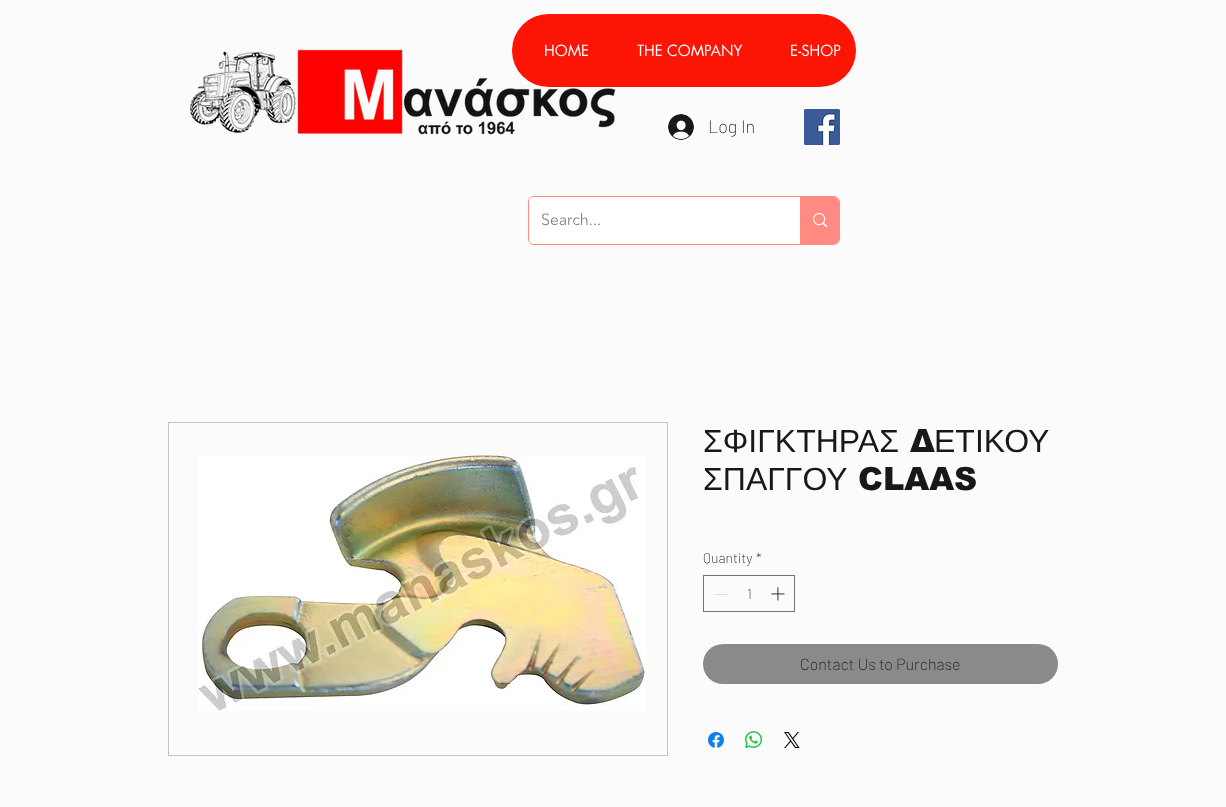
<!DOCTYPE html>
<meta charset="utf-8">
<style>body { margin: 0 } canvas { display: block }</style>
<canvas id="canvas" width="1226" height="807"></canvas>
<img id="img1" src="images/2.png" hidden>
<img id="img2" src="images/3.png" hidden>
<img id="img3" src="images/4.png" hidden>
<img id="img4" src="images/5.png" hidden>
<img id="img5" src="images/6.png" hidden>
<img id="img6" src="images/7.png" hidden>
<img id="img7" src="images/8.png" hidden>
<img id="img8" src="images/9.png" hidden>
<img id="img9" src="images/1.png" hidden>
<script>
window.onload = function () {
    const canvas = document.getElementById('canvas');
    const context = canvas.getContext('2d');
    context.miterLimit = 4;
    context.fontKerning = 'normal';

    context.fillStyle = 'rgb(252, 251, 251)';
    context.fillRect(0, 0, 1226, 807);
    context.fillStyle = 'rgb(252, 20, 4)';
    context.beginPath();
    context.roundRect(512, 14, 344, 73, 36.5);
    context.fill();
    context.drawImage(document.getElementById('img1'), 668, 114, 26, 26);
    context.drawImage(document.getElementById('img2'), 804, 109, 36, 36);
    context.beginPath();
    context.roundRect(528.5, 196.5, 311, 48, 5.5);
    context.strokeStyle = 'rgb(254, 138, 130)';
    context.stroke();
    context.fillStyle = 'rgb(255, 255, 255)';
    context.beginPath();
    context.roundRect(529, 197, 310, 47, 5);
    context.fill();
    context.fillStyle = 'rgb(254, 138, 130)';
    context.beginPath();
    context.roundRect(800, 197, 39, 47, [0, 5, 5, 0]);
    context.fill();
    context.drawImage(document.getElementById('img3'), 813, 213, 14, 15);
    context.strokeStyle = 'rgb(195, 195, 195)';
    context.strokeRect(168.5, 422.5, 499, 333);
    context.drawImage(document.getElementById('img4'), 198, 455, 448, 256);
    context.strokeStyle = 'rgb(115, 115, 115)';
    context.strokeRect(703.5, 575.5, 91, 36);
    context.fillStyle = 'rgb(226, 225, 225)';
    context.fillRect(715, 594, 13, 1);
    context.drawImage(document.getElementById('img5'), 771, 587, 14, 14);
    context.fillStyle = 'rgb(138, 138, 138)';
    context.beginPath();
    context.roundRect(703, 644, 355, 40, 20);
    context.fill();
    context.drawImage(document.getElementById('img6'), 708, 732, 16, 16);
    context.drawImage(document.getElementById('img7'), 745, 731, 17, 17);
    context.drawImage(document.getElementById('img8'), 784, 732, 16, 16);
    context.font = '15px futura';
    context.fillStyle = 'rgb(254, 253, 253)';
    context.fillText('HOME', 544, 56);
    context.drawImage(document.getElementById('img9'), 189, 49, 427, 86);
    context.fillText('THE COMPANY', 637, 56);
    context.fillText('E-SHOP', 790, 56);
    context.font = '200 18px Barlow';
    context.fillStyle = 'rgb(24, 24, 24)';
    context.fillText('Log In', 708, 133);
    context.font = '300 16px "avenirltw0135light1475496"';
    context.fillStyle = 'rgb(120, 120, 120)';
    context.fillText('Search...', 541, 225);
    context.font = '32px Liberation Sans';
    context.fillStyle = 'rgb(24, 24, 24)';
    context.fillText('ΣΦΙΓΚΤΗΡΑΣ', 703, 452);
    context.font = '900 32px arial';
    context.fillText('Δ', 910, 452);
    context.font = '32px Liberation Sans';
    context.fillText('ΕΤΙΚΟΥ', 934, 452);
    context.fillText('ΣΠΑΓΓΟΥ', 703, 490);
    context.font = '900 32px arial';
    context.fillText('CLAAS', 858, 490);
    context.font = '200 14px Barlow';
    context.fillText('Quantity', 703, 563);
    context.fillText('*', 756, 563);
    context.fillText('1', 747, 599);
    context.font = '200 16px Barlow';
    context.fillText('Contact Us to Purchase', 800, 670);
};
</script>
